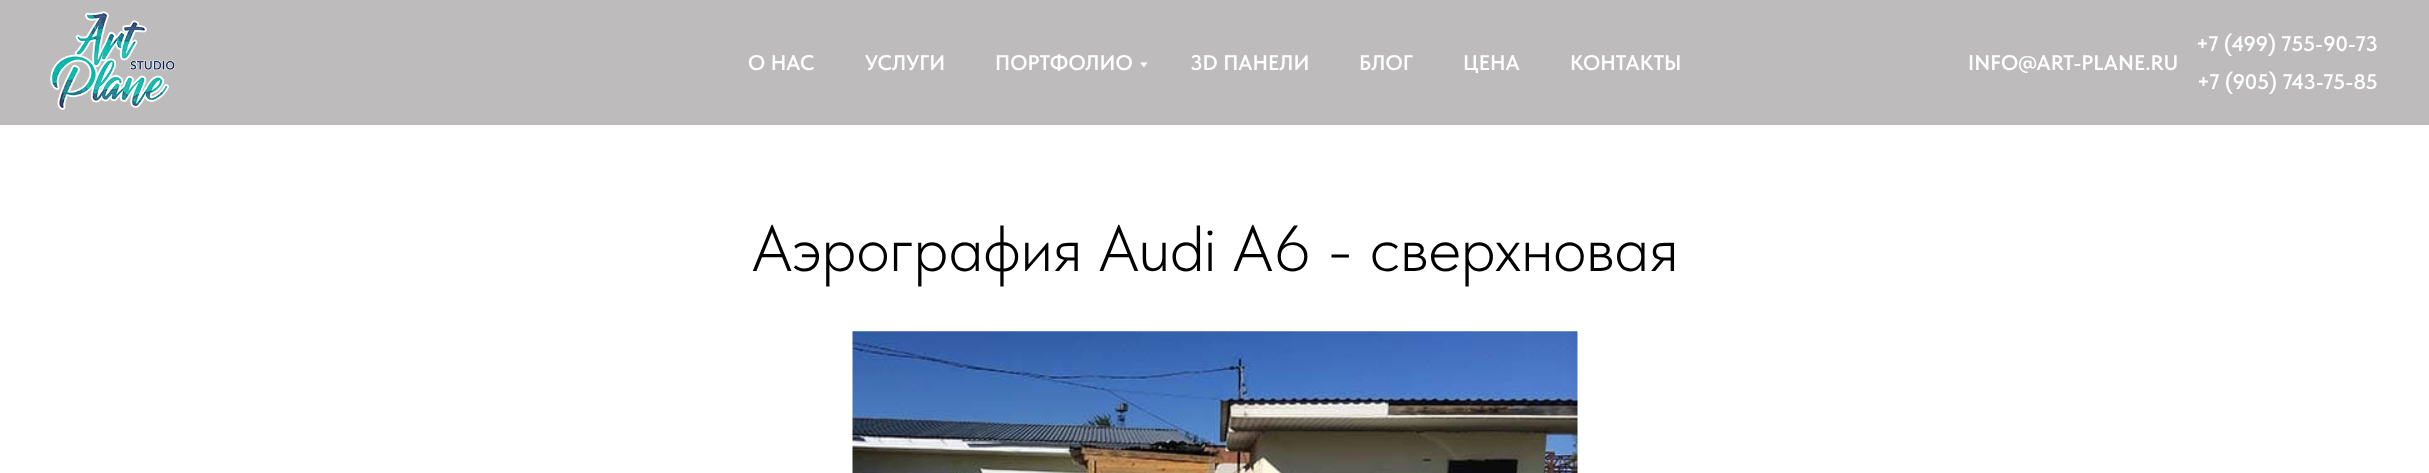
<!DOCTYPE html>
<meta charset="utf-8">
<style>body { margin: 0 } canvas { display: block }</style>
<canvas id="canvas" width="2429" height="473"></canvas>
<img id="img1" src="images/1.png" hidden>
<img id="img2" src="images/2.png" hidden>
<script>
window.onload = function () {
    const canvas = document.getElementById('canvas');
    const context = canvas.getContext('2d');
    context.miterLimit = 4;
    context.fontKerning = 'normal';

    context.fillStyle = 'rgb(255, 255, 255)';
    context.fillRect(0, 0, 2429, 473);
    context.fillStyle = 'rgb(189, 187, 187)';
    context.fillRect(0, 0, 2429, 125);
    context.drawImage(document.getElementById('img1'), 50, 11, 125, 99);
    context.fillStyle = 'rgb(255, 255, 255)';
    context.beginPath();
    context.moveTo(1140, 62.5);
    context.lineTo(1147.5, 62.5);
    context.lineTo(1144, 67.5);
    context.closePath();
    context.fill();
    context.drawImage(document.getElementById('img2'), 852, 331, 726, 142);
    context.font = '600 21.25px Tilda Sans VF';
    context.fillText('О НАС', 748, 70);
    context.fillText('УСЛУГИ', 865, 70);
    context.fillText('ПОРТФОЛИО', 995, 70);
    context.fillText('3D ПАНЕЛИ', 1190, 70);
    context.fillText('БЛОГ', 1359, 70);
    context.fillText('ЦЕНА', 1463, 70);
    context.fillText('КОНТАКТЫ', 1570, 70);
    context.fillText('INFO@ART-PLANE.RU', 1968, 70);
    context.fillText('+7 (499) 755-90-73', 2196, 51);
    context.fillText('+7 (905) 743-75-85', 2197, 89);
    context.font = '300 65px Tilda Sans VF';
    context.fillStyle = 'rgb(0, 0, 0)';
    context.fillText('Аэрография Audi A6 - сверхновая', 752, 271);
};
</script>
